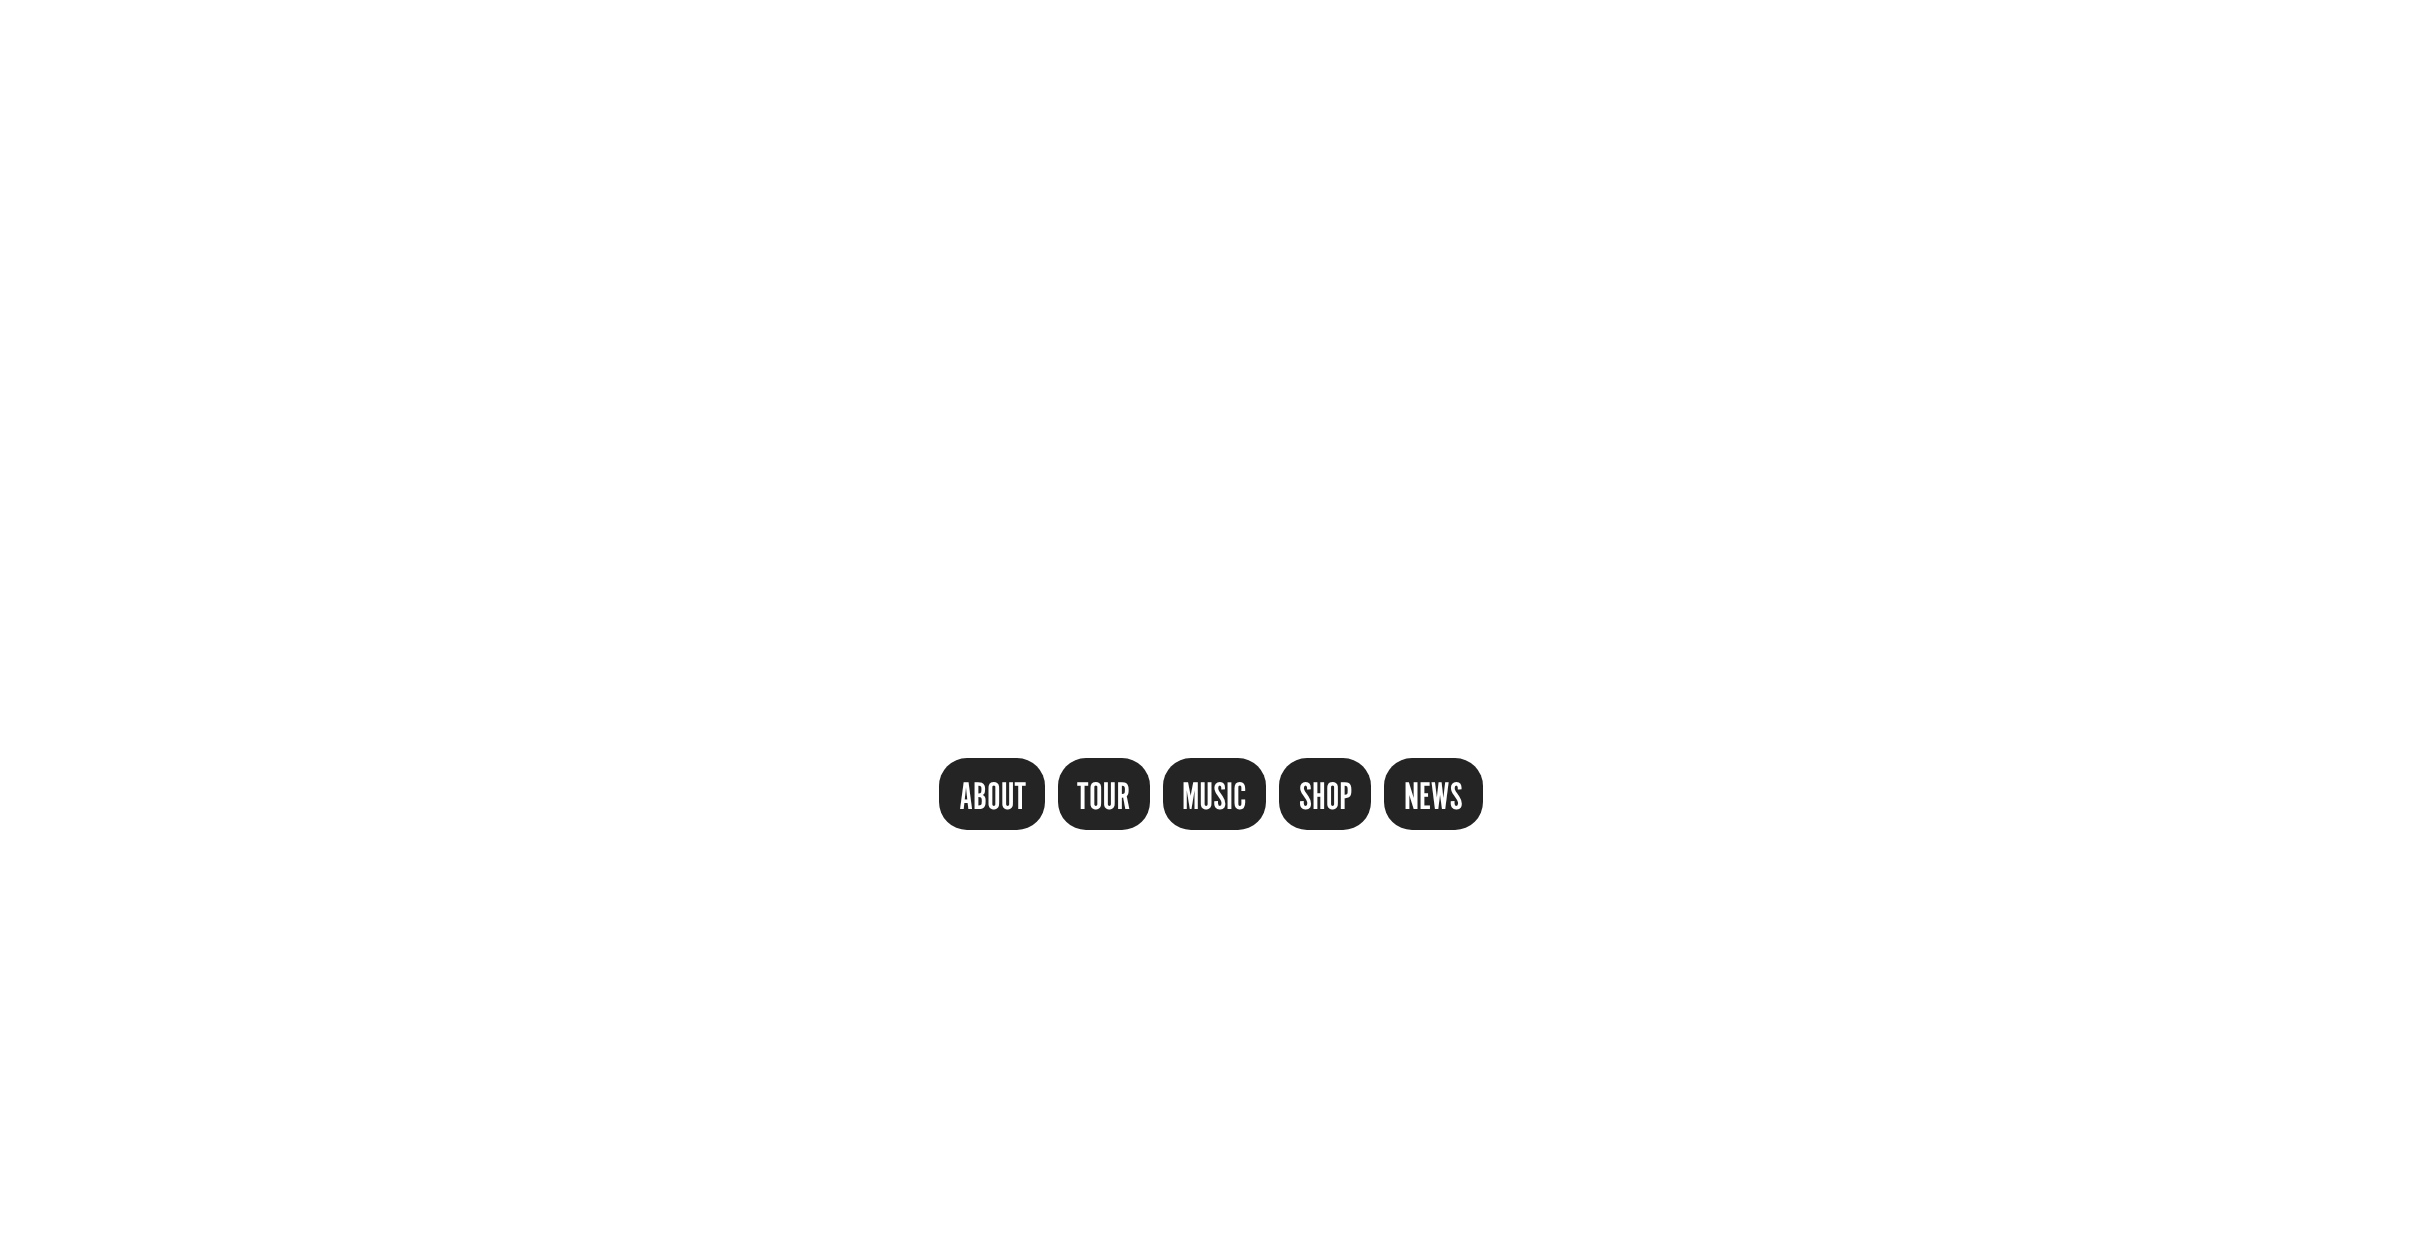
<!DOCTYPE html>
<meta charset="utf-8">
<style>body { margin: 0 } canvas { display: block }</style>
<canvas id="canvas" width="2419" height="1240"></canvas>
<script>
window.onload = function () {
    const canvas = document.getElementById('canvas');
    const context = canvas.getContext('2d');
    context.miterLimit = 4;
    context.fontKerning = 'normal';

    context.fillStyle = 'rgb(255, 255, 255)';
    context.fillRect(0, 0, 2419, 1240);
    context.fillStyle = 'rgb(36, 36, 36)';
    context.beginPath();
    context.roundRect(939, 758, 106, 72, 28);
    context.fill();
    context.beginPath();
    context.roundRect(1058, 758, 92, 72, 28);
    context.fill();
    context.beginPath();
    context.roundRect(1163, 758, 103, 72, 28);
    context.fill();
    context.beginPath();
    context.roundRect(1279, 758, 92, 72, 28);
    context.fill();
    context.beginPath();
    context.roundRect(1384, 758, 99, 72, 28);
    context.fill();
    context.font = '40px "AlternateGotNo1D"';
    context.fillStyle = 'rgb(255, 255, 255)';
    context.fillText('ABOUT', 959, 809);
    context.fillText('TOUR', 1077, 809);
    context.fillText('MUSIC', 1182, 809);
    context.fillText('SHOP', 1299, 809);
    context.fillText('NEWS', 1404, 809);
};
</script>
